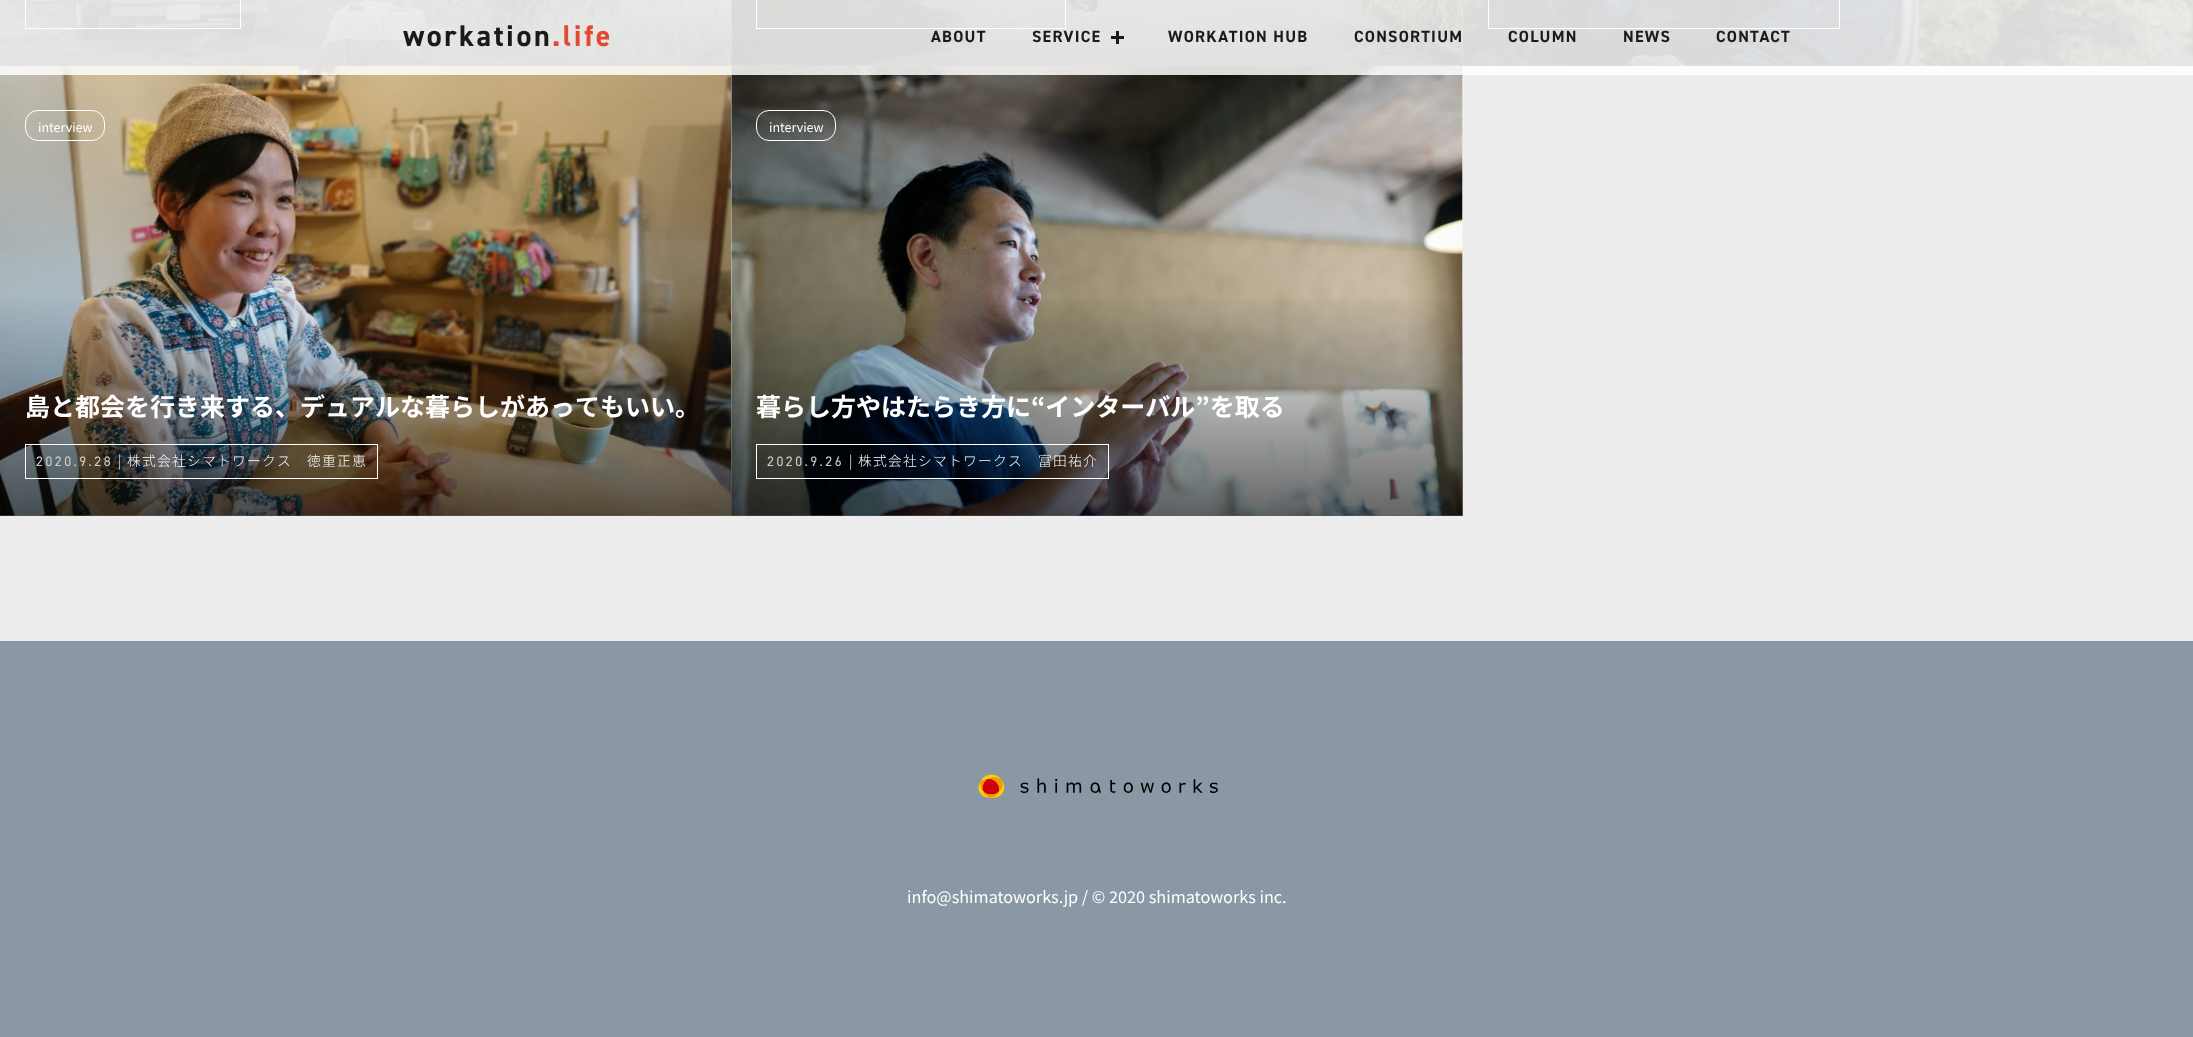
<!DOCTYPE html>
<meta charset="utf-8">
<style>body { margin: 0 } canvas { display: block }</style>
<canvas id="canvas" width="2193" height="1037"></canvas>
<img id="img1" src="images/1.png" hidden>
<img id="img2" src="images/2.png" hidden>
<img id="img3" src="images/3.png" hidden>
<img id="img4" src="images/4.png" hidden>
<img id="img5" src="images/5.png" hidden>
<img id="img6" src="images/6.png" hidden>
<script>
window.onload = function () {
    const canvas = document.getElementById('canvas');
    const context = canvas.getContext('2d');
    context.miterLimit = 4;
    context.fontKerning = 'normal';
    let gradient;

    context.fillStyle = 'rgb(237, 237, 237)';
    context.fillRect(0, 0, 2193, 1037);
    context.drawImage(document.getElementById('img1'), 0, 0, 732, 66);
    gradient = context.createLinearGradient(366, -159, 366, 66);
    gradient.addColorStop(0, 'rgba(0, 0, 0, 0)');
    gradient.addColorStop(1, 'rgba(0, 0, 0, 0.6)');
    context.fillStyle = gradient;
    context.fillRect(0, 0, 731, 66);
    context.strokeStyle = 'rgb(255, 255, 255)';
    context.strokeRect(25.5, -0.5, 215, 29);
    context.drawImage(document.getElementById('img2'), 731, 0, 732, 66);
    gradient = context.createLinearGradient(1097, -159, 1097, 66);
    gradient.addColorStop(0, 'rgba(0, 0, 0, 0)');
    gradient.addColorStop(1, 'rgba(0, 0, 0, 0.6)');
    context.fillStyle = gradient;
    context.fillRect(731, 0, 732, 66);
    context.strokeRect(756.5, -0.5, 309, 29);
    context.drawImage(document.getElementById('img3'), 1462, 0, 731, 66);
    gradient = context.createLinearGradient(1828, -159, 1828, 66);
    gradient.addColorStop(0, 'rgba(0, 0, 0, 0)');
    gradient.addColorStop(1, 'rgba(0, 0, 0, 0.6)');
    context.fillStyle = gradient;
    context.fillRect(1463, 0, 730, 66);
    context.strokeRect(1488.5, -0.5, 351, 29);
    context.drawImage(document.getElementById('img4'), 0, 65, 732, 451);
    context.drawImage(document.getElementById('img5'), 731, 65, 732, 451);
    context.fillStyle = 'rgba(255, 255, 255, 0.85)';
    context.fillRect(0, 0, 2193, 75);
    context.fillStyle = 'rgb(26, 26, 26)';
    context.fillRect(1111, 36, 13, 3);
    context.fillRect(1116, 31, 3, 13);
    gradient = context.createLinearGradient(366, 291, 366, 516);
    gradient.addColorStop(0, 'rgba(0, 0, 0, 0)');
    gradient.addColorStop(1, 'rgba(0, 0, 0, 0.6)');
    context.fillStyle = gradient;
    context.fillRect(0, 299, 731, 217);
    context.beginPath();
    context.roundRect(25.5, 110.5, 79, 30, 12.5);
    context.stroke();
    context.strokeRect(25.5, 444.5, 352, 34);
    gradient = context.createLinearGradient(1097, 291, 1097, 516);
    gradient.addColorStop(0, 'rgba(0, 0, 0, 0)');
    gradient.addColorStop(1, 'rgba(0, 0, 0, 0.6)');
    context.fillStyle = gradient;
    context.fillRect(731, 299, 732, 217);
    context.beginPath();
    context.roundRect(756.5, 110.5, 79, 30, 12.5);
    context.stroke();
    context.strokeRect(756.5, 444.5, 352, 34);
    context.fillStyle = 'rgb(139, 151, 165)';
    context.fillRect(0, 641, 2193, 396);
    context.drawImage(document.getElementById('img6'), 978, 774, 240, 24);
    context.letterSpacing = '2.5px';
    context.font = 'bold 30px "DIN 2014"';
    context.fillStyle = 'rgb(26, 26, 26)';
    context.fillText('workation', 403, 46);
    context.fillStyle = 'rgb(231, 72, 50)';
    context.fillText('.life', 552, 46);
    context.letterSpacing = '1.25px';
    context.font = 'bold 16.25px "DIN 2014"';
    context.fillStyle = 'rgb(26, 26, 26)';
    context.fillText('ABOUT', 931, 42);
    context.fillText('SERVICE', 1032, 42);
    context.fillText('WORKATION HUB', 1168, 42);
    context.fillText('CONSORTIUM', 1354, 42);
    context.fillText('COLUMN', 1508, 42);
    context.fillText('NEWS', 1623, 42);
    context.fillText('CONTACT', 1716, 42);
    context.letterSpacing = '0px';
    context.font = '12.5px Noto Sans JP';
    context.fillStyle = 'rgb(255, 255, 255)';
    context.fillText('interview', 38, 132);
    context.font = 'bold 25px Noto Sans JP';
    context.fillText('島と都会を行き来する、デュアルな暮らしがあってもいい。', 25, 416);
    context.letterSpacing = '2.5px';
    context.font = '13.75px "DIN 2014"';
    context.fillStyle = 'rgb(204, 204, 204)';
    context.fillText('2020.9.28', 36, 466);
    context.letterSpacing = '1.25px';
    context.font = '300 13.75px Noto Sans JP';
    context.fillStyle = 'rgb(255, 255, 255)';
    context.fillText('| 株式会社シマトワークス　徳重正恵', 118, 466);
    context.letterSpacing = '0px';
    context.font = '12.5px Noto Sans JP';
    context.fillText('interview', 769, 132);
    context.font = 'bold 25px Noto Sans JP';
    context.fillText('暮らし方やはたらき方に“インターバル”を取る', 756, 416);
    context.letterSpacing = '2.5px';
    context.font = '13.75px "DIN 2014"';
    context.fillStyle = 'rgb(204, 204, 204)';
    context.fillText('2020.9.26', 767, 466);
    context.letterSpacing = '1.25px';
    context.font = '300 13.75px Noto Sans JP';
    context.fillStyle = 'rgb(255, 255, 255)';
    context.fillText('| 株式会社シマトワークス　富田祐介', 849, 466);
    context.letterSpacing = '0px';
    context.font = '16.25px Noto Sans JP';
    context.fillText('info@shimatoworks.jp / © 2020 shimatoworks inc.', 907, 903);
};
</script>
